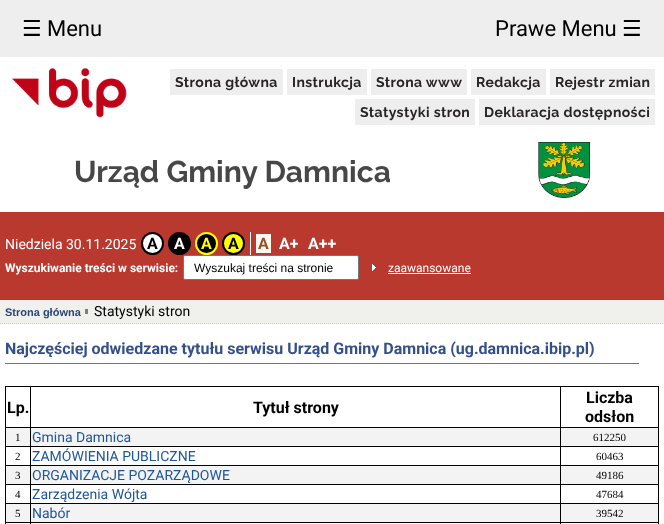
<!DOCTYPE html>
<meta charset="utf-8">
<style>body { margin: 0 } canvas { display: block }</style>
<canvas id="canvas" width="664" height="524"></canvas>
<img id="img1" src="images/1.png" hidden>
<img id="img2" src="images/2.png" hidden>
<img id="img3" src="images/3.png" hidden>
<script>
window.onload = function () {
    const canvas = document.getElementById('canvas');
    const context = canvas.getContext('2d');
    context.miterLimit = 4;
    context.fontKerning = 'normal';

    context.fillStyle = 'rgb(255, 255, 255)';
    context.fillRect(0, 0, 664, 524);
    context.fillStyle = 'rgb(238, 238, 238)';
    context.fillRect(0, 0, 664, 57);
    context.drawImage(document.getElementById('img1'), 12, 68, 115, 50);
    context.fillRect(170, 69, 113, 26);
    context.fillRect(287, 69, 80, 26);
    context.fillRect(371, 69, 96, 26);
    context.fillRect(471, 69, 75, 26);
    context.fillRect(550, 69, 105, 26);
    context.fillRect(355, 99, 120, 26);
    context.fillRect(479, 99, 176, 26);
    context.drawImage(document.getElementById('img2'), 538, 142, 52, 56);
    context.fillStyle = 'rgb(185, 57, 46)';
    context.fillRect(0, 212, 664, 88);
    context.fillStyle = 'rgb(255, 255, 255)';
    context.fillRect(250, 232, 1, 23);
    context.beginPath();
    context.arc(152.5, 243.5, 10.5, 0, 2 * Math.PI);
    context.fill();
    context.strokeStyle = 'rgb(0, 0, 0)';
    context.lineWidth = 2;
    context.stroke();
    context.fillStyle = 'rgb(0, 0, 0)';
    context.beginPath();
    context.arc(179.5, 243.5, 10.5, 0, 2 * Math.PI);
    context.fill();
    context.stroke();
    context.beginPath();
    context.arc(206.5, 243.5, 10.5, 0, 2 * Math.PI);
    context.fill();
    context.strokeStyle = 'rgb(255, 255, 0)';
    context.stroke();
    context.fillStyle = 'rgb(255, 255, 0)';
    context.beginPath();
    context.arc(233.5, 243.5, 10.5, 0, 2 * Math.PI);
    context.fill();
    context.strokeStyle = 'rgb(0, 0, 0)';
    context.stroke();
    context.fillStyle = 'rgb(248, 249, 241)';
    context.fillRect(256, 234, 15, 19);
    context.fillStyle = 'rgb(255, 255, 255)';
    context.beginPath();
    context.roundRect(183.5, 255.5, 175, 24, 1.5);
    context.fill();
    context.strokeStyle = 'rgb(118, 118, 118)';
    context.lineWidth = 1;
    context.stroke();
    context.drawImage(document.getElementById('img3'), 372, 264, 4, 7);
    context.fillRect(388, 273, 83, 1);
    context.fillStyle = 'rgb(240, 240, 237)';
    context.fillRect(0, 300, 664, 24);
    context.beginPath();
    context.moveTo(0, 323.5);
    context.lineTo(664, 323.5);
    context.strokeStyle = 'rgb(207, 207, 198)';
    context.setLineDash([1, 1]);
    context.stroke();
    context.fillStyle = 'rgb(126, 126, 126)';
    context.fillRect(85, 309, 3, 5);
    context.fillStyle = 'rgb(119, 119, 119)';
    context.fillRect(5, 363, 634, 1);
    context.fillStyle = 'rgb(0, 0, 0)';
    context.fillRect(5, 386, 654, 1);
    context.fillRect(658, 386, 1, 138);
    context.fillRect(5, 386, 1, 138);
    context.fillRect(560, 427, 99, 1);
    context.fillStyle = 'rgb(243, 243, 243)';
    context.fillRect(6, 428, 652, 18);
    context.fillStyle = 'rgb(0, 0, 0)';
    context.fillRect(560, 446, 99, 1);
    context.fillRect(560, 465, 99, 1);
    context.fillStyle = 'rgb(243, 243, 243)';
    context.fillRect(6, 466, 652, 18);
    context.fillStyle = 'rgb(0, 0, 0)';
    context.fillRect(560, 484, 99, 1);
    context.fillRect(560, 503, 99, 1);
    context.fillStyle = 'rgb(243, 243, 243)';
    context.fillRect(6, 504, 652, 18);
    context.fillStyle = 'rgb(0, 0, 0)';
    context.fillRect(560, 522, 99, 1);
    context.fillRect(560, 522, 1, 2);
    context.fillRect(30, 522, 531, 1);
    context.fillRect(560, 503, 1, 20);
    context.fillRect(30, 503, 531, 1);
    context.fillRect(560, 484, 1, 20);
    context.fillRect(30, 484, 531, 1);
    context.fillRect(560, 465, 1, 20);
    context.fillRect(30, 465, 531, 1);
    context.fillRect(560, 446, 1, 20);
    context.fillRect(30, 446, 531, 1);
    context.fillRect(560, 427, 1, 20);
    context.fillRect(30, 427, 531, 1);
    context.fillRect(30, 522, 1, 2);
    context.fillRect(5, 522, 26, 1);
    context.fillRect(30, 503, 1, 20);
    context.fillRect(5, 503, 26, 1);
    context.fillRect(30, 484, 1, 20);
    context.fillRect(5, 484, 26, 1);
    context.fillRect(30, 465, 1, 20);
    context.fillRect(5, 465, 26, 1);
    context.fillRect(30, 446, 1, 20);
    context.fillRect(5, 446, 26, 1);
    context.fillRect(30, 427, 1, 20);
    context.fillRect(5, 427, 26, 1);
    context.fillRect(30, 386, 1, 42);
    context.fillRect(560, 386, 1, 42);
    context.font = '22px DejaVu Sans';
    context.fillText('☰', 22, 36);
    context.font = '22px Roboto';
    context.fillText('Menu', 47, 36);
    context.fillText('Prawe Menu', 495, 36);
    context.font = '22px DejaVu Sans';
    context.fillText('☰', 622, 36);
    context.letterSpacing = '0.4px';
    context.font = 'bold 14px Raleway';
    context.fillStyle = 'rgb(40, 36, 37)';
    context.fillText('Strona główna', 175, 87);
    context.fillText('Instrukcja', 292, 87);
    context.fillText('Strona www', 376, 87);
    context.fillText('Redakcja', 476, 87);
    context.fillText('Rejestr zmian', 555, 87);
    context.fillText('Statystyki stron', 360, 117);
    context.fillText('Deklaracja dostępności', 484, 117);
    context.letterSpacing = '0px';
    context.font = 'bold 30px Raleway';
    context.fillStyle = 'rgb(71, 71, 71)';
    context.fillText('Urząd Gminy Damnica', 74, 182);
    context.font = '14px Roboto';
    context.fillStyle = 'rgb(255, 255, 255)';
    context.fillText('Niedziela 30.11.2025', 5, 249);
    context.font = 'bold 16px Roboto';
    context.fillStyle = 'rgb(0, 0, 0)';
    context.fillText('A', 147, 249);
    context.fillStyle = 'rgb(255, 255, 255)';
    context.fillText('A', 174, 249);
    context.fillStyle = 'rgb(255, 255, 0)';
    context.fillText('A', 201, 249);
    context.fillStyle = 'rgb(0, 0, 0)';
    context.fillText('A', 228, 249);
    context.fillStyle = 'rgb(154, 77, 34)';
    context.fillText('A', 258, 249);
    context.fillStyle = 'rgb(255, 255, 255)';
    context.fillText('A+', 279, 249);
    context.fillText('A++', 308, 249);
    context.font = 'bold 12px Roboto';
    context.fillText('Wyszukiwanie treści w serwisie:', 5, 272);
    context.font = '12px Liberation Sans';
    context.fillStyle = 'rgb(0, 0, 0)';
    context.fillText('Wyszukaj treści na stronie', 194, 272);
    context.font = '12px Roboto';
    context.fillStyle = 'rgb(255, 255, 255)';
    context.fillText('zaawansowane', 388, 272);
    context.font = 'bold 11px Liberation Sans';
    context.fillStyle = 'rgb(44, 68, 118)';
    context.fillText('Strona główna', 5, 316);
    context.font = '14px Roboto';
    context.fillStyle = 'rgb(0, 0, 0)';
    context.fillText('Statystyki stron', 94, 316);
    context.font = 'bold 16px Roboto';
    context.fillStyle = 'rgb(52, 80, 139)';
    context.fillText('Najczęściej odwiedzane tytułu serwisu Urząd Gminy Damnica (ug.damnica.ibip.pl)', 5, 354);
    context.fillStyle = 'rgb(0, 0, 0)';
    context.fillText('Lp.', 7, 413);
    context.fillText('Tytuł strony', 253, 413);
    context.fillText('Liczba', 586, 403);
    context.fillText('odsłon', 585, 422);
    context.font = '11px Liberation Serif';
    context.fillText('1', 15, 441);
    context.font = '14px Roboto';
    context.fillStyle = 'rgb(29, 86, 155)';
    context.fillText('Gmina Damnica', 32, 442);
    context.font = '11px Liberation Serif';
    context.fillStyle = 'rgb(0, 0, 0)';
    context.fillText('612250', 593, 441);
    context.fillText('2', 15, 460);
    context.font = '14px Roboto';
    context.fillStyle = 'rgb(29, 86, 155)';
    context.fillText('ZAMÓWIENIA PUBLICZNE', 32, 461);
    context.font = '11px Liberation Serif';
    context.fillStyle = 'rgb(0, 0, 0)';
    context.fillText('60463', 596, 460);
    context.fillText('3', 15, 479);
    context.font = '14px Roboto';
    context.fillStyle = 'rgb(29, 86, 155)';
    context.fillText('ORGANIZACJE POZARZĄDOWE', 32, 480);
    context.font = '11px Liberation Serif';
    context.fillStyle = 'rgb(0, 0, 0)';
    context.fillText('49186', 596, 479);
    context.fillText('4', 15, 498);
    context.font = '14px Roboto';
    context.fillStyle = 'rgb(29, 86, 155)';
    context.fillText('Zarządzenia Wójta', 32, 499);
    context.font = '11px Liberation Serif';
    context.fillStyle = 'rgb(0, 0, 0)';
    context.fillText('47684', 596, 498);
    context.fillText('5', 15, 517);
    context.font = '14px Roboto';
    context.fillStyle = 'rgb(29, 86, 155)';
    context.fillText('Nabór', 32, 518);
    context.font = '11px Liberation Serif';
    context.fillStyle = 'rgb(0, 0, 0)';
    context.fillText('39542', 596, 517);
};
</script>
